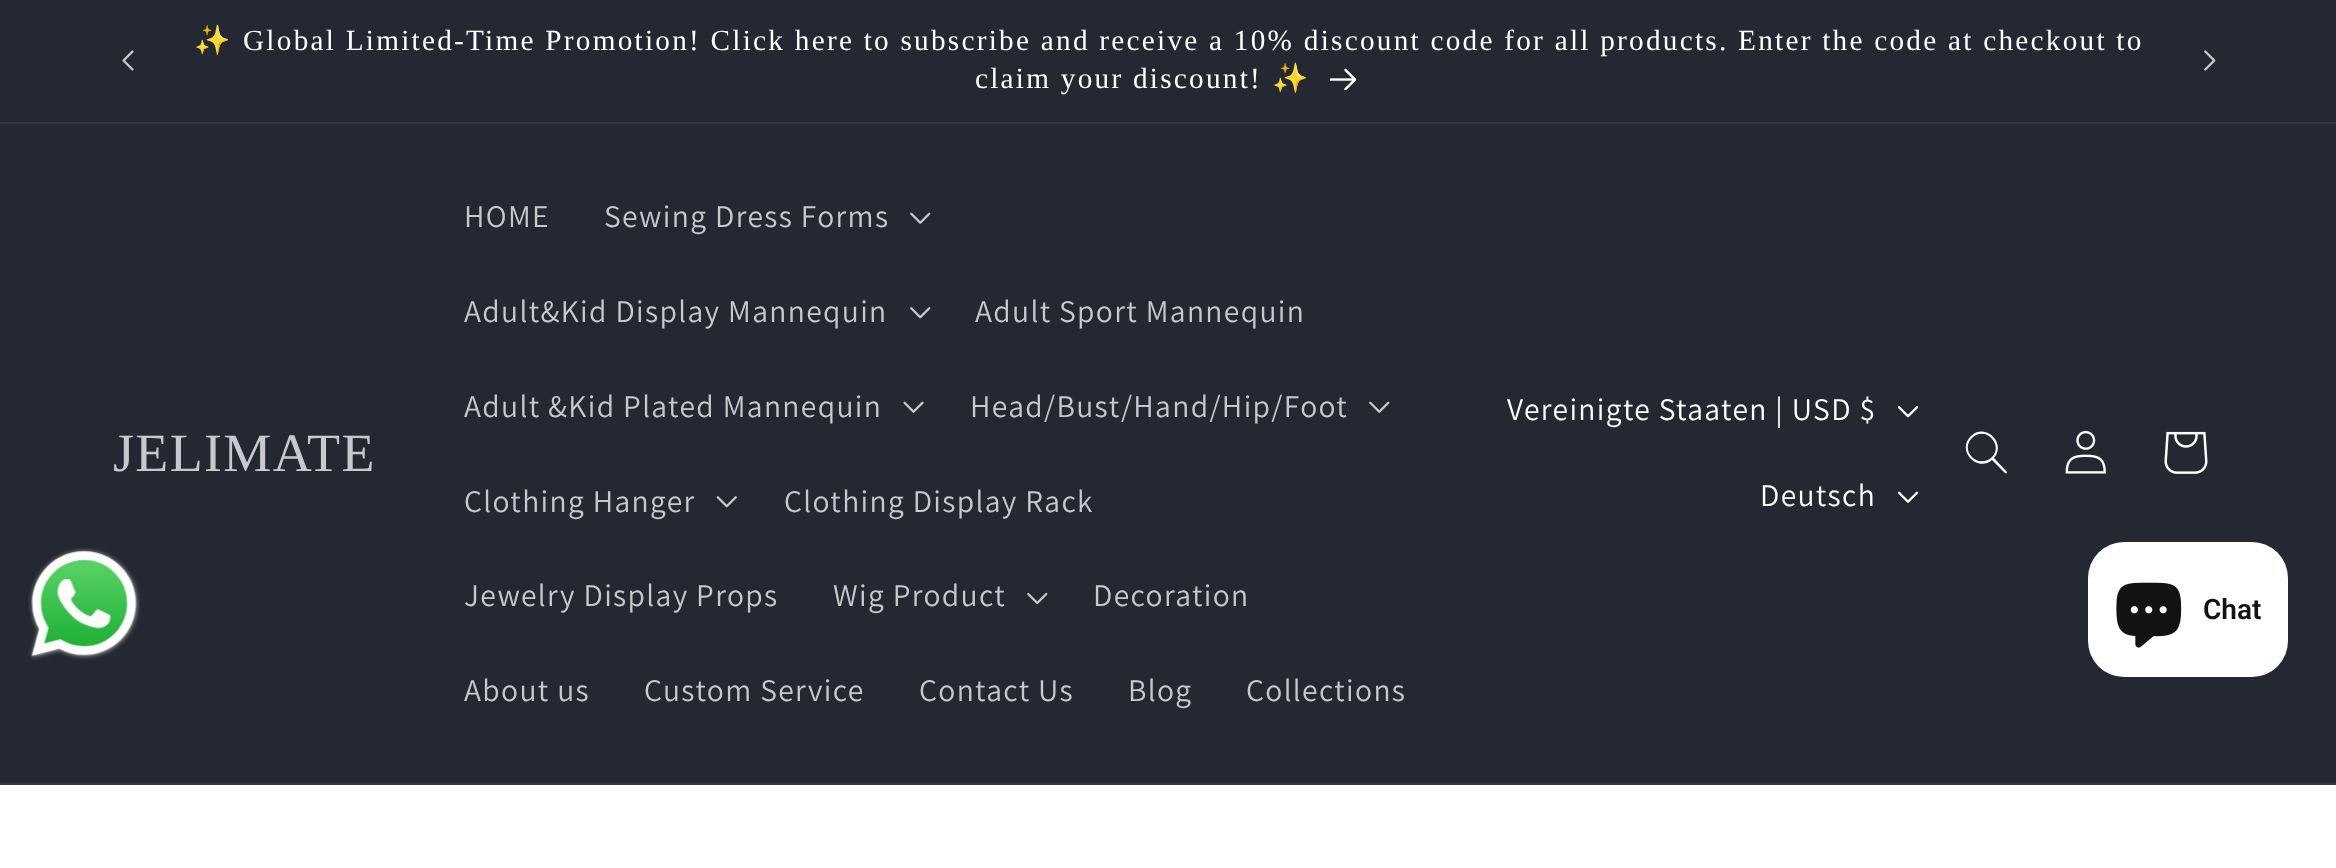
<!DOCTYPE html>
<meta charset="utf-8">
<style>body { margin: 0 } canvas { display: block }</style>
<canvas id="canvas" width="2336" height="868"></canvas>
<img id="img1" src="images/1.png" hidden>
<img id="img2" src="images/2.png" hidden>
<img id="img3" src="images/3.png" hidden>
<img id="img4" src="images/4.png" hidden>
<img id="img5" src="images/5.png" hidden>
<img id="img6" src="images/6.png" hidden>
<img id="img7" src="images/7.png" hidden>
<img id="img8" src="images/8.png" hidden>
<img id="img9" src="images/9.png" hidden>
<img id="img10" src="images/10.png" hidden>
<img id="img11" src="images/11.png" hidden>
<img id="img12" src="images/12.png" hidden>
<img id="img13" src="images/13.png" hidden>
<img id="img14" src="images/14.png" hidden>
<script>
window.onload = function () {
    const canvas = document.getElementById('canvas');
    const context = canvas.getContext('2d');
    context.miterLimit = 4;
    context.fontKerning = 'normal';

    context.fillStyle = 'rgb(255, 255, 255)';
    context.fillRect(0, 0, 2336, 868);
    context.fillStyle = 'rgb(36, 40, 51)';
    context.fillRect(0, 0, 2336, 122);
    context.fillStyle = 'rgb(54, 57, 67)';
    context.fillRect(0, 122, 2336, 2);
    context.drawImage(document.getElementById('img1'), 122, 50, 12, 21);
    context.drawImage(document.getElementById('img2'), 1330, 68, 27, 22);
    context.drawImage(document.getElementById('img3'), 2204, 50, 12, 21);
    context.fillStyle = 'rgb(36, 40, 51)';
    context.fillRect(0, 124, 2336, 659);
    context.drawImage(document.getElementById('img4'), 28, 547, 113, 113);
    context.fillStyle = 'rgb(54, 57, 67)';
    context.fillRect(0, 783, 2336, 2);
    context.drawImage(document.getElementById('img5'), 910, 212, 21, 12);
    context.drawImage(document.getElementById('img6'), 910, 307, 21, 12);
    context.drawImage(document.getElementById('img7'), 903, 401, 21, 12);
    context.drawImage(document.getElementById('img5'), 1369, 401, 21, 12);
    context.drawImage(document.getElementById('img8'), 716, 496, 21, 12);
    context.drawImage(document.getElementById('img9'), 1027, 592, 21, 13);
    context.drawImage(document.getElementById('img10'), 1897, 406, 22, 12);
    context.drawImage(document.getElementById('img11'), 1897, 491, 22, 12);
    context.fillStyle = 'rgb(255, 255, 255)';
    context.beginPath();
    context.moveTo(1992, 457);
    context.bezierCurveTo(1979, 470, 1959, 451, 1972, 438);
    context.bezierCurveTo(1985, 425, 2004, 445, 1992, 457);
    context.moveTo(1992, 460);
    context.bezierCurveTo(1977, 473, 1956, 450, 1971, 436);
    context.bezierCurveTo(1985, 422, 2007, 443, 1994, 458);
    context.lineTo(2007, 472);
    context.bezierCurveTo(2007, 473, 2006, 474, 2005, 473);
    context.closePath();
    context.fill('evenodd');
    context.drawImage(document.getElementById('img12'), 2065, 430, 41, 44);
    context.drawImage(document.getElementById('img13'), 2164, 431, 44, 43);
    context.beginPath();
    context.roundRect(2088, 542, 200, 135, 36);
    context.fill();
    context.drawImage(document.getElementById('img14'), 2116, 582, 66, 66);
    context.letterSpacing = '2.25px';
    context.font = '29.25px Noto Color Emoji';
    context.fillText('✨', 194, 50);
    context.font = '29.25px Liberation Serif';
    context.fillText('Global Limited-Time Promotion! Click here to subscribe and receive a 10% discount code for all products. Enter the code at checkout to', 243, 50);
    context.fillText('claim your discount!', 975, 88);
    context.font = '29.25px Noto Color Emoji';
    context.fillText('✨', 1272, 88);
    context.letterSpacing = '1.35px';
    context.font = '54px Liberation Serif';
    context.fillStyle = 'rgb(200, 201, 204)';
    context.fillText('JELIMATE', 113, 471);
    context.font = '31.5px Assistant';
    context.fillText('HOME', 464, 227);
    context.fillText('Sewing Dress Forms', 604, 227);
    context.fillText('Adult&Kid Display Mannequin', 464, 322);
    context.fillText('Adult Sport Mannequin', 975, 322);
    context.fillText('Adult &Kid Plated Mannequin', 464, 417);
    context.fillText('Head/Bust/Hand/Hip/Foot', 970, 417);
    context.fillText('Clothing Hanger', 464, 512);
    context.fillText('Clothing Display Rack', 784, 512);
    context.fillText('Jewelry Display Props', 464, 606);
    context.fillText('Wig Product', 833, 606);
    context.fillText('Decoration', 1093, 606);
    context.fillText('About us', 464, 701);
    context.fillText('Custom Service', 644, 701);
    context.fillText('Contact Us', 919, 701);
    context.fillText('Blog', 1128, 701);
    context.fillText('Collections', 1246, 701);
    context.fillStyle = 'rgb(255, 255, 255)';
    context.fillText('Vereinigte Staaten | USD $', 1507, 420);
    context.fillText('Deutsch', 1760, 506);
    context.letterSpacing = '0px';
    context.font = '600 28px Roboto';
    context.fillStyle = 'rgb(18, 18, 18)';
    context.fillText('Chat', 2203, 619);
};
</script>
